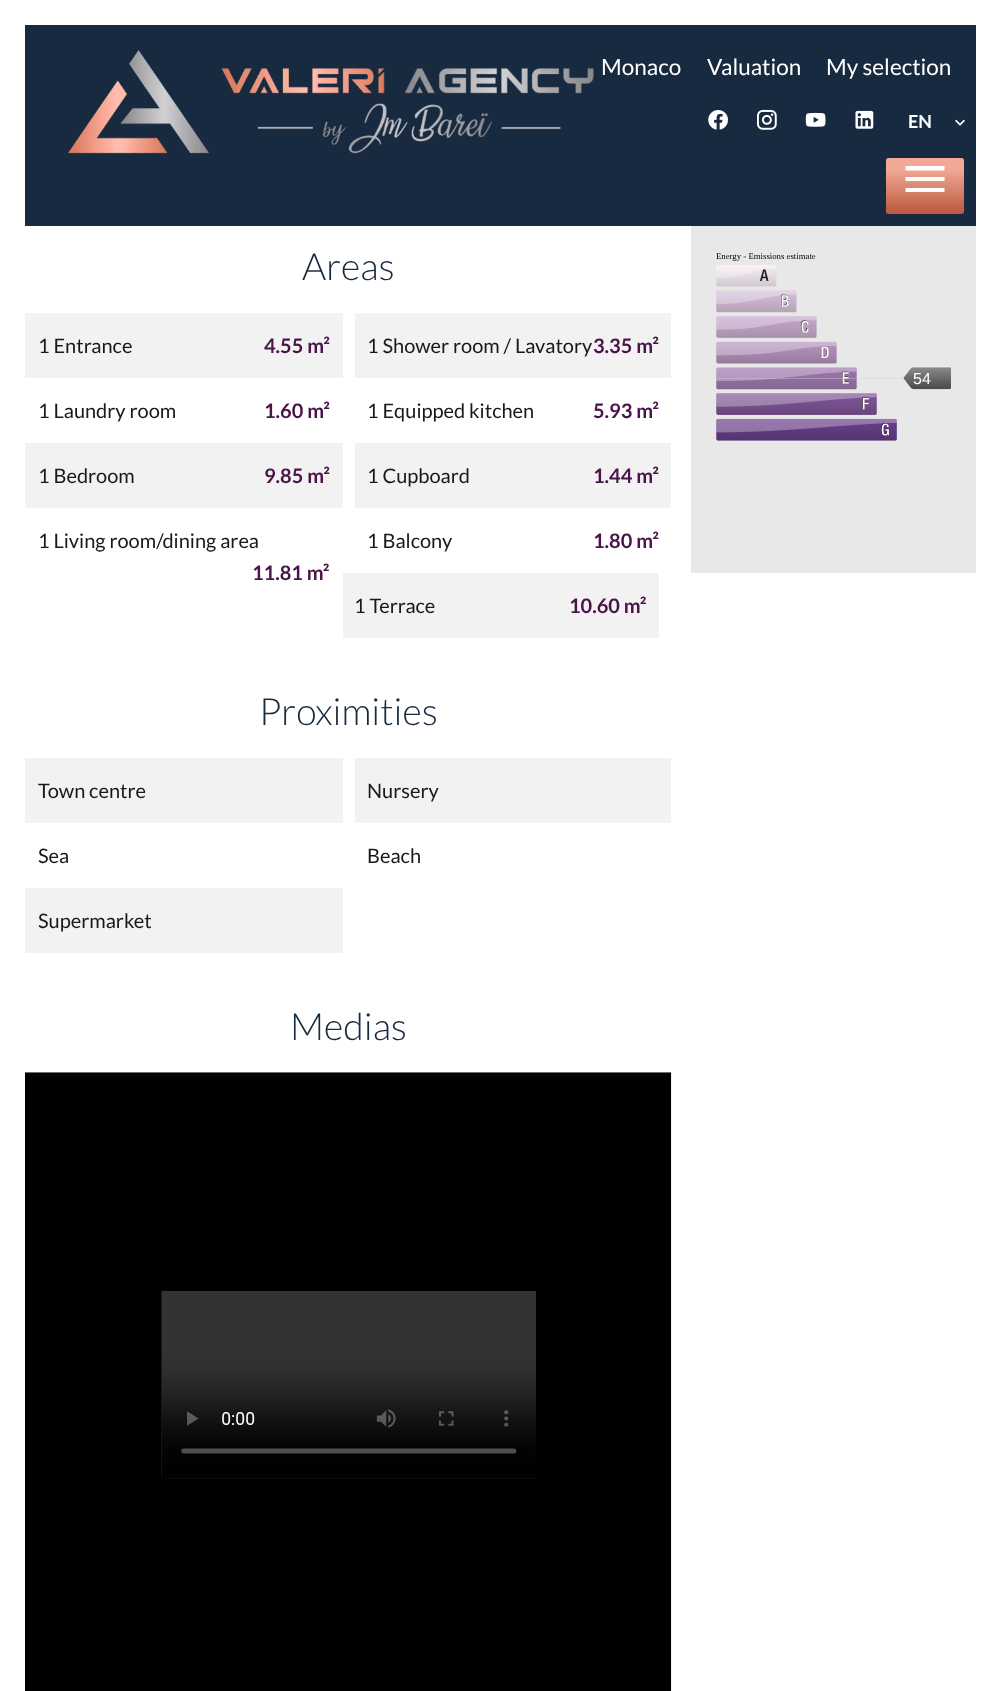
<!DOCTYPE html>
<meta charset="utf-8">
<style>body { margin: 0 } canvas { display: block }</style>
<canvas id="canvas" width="1001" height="1691"></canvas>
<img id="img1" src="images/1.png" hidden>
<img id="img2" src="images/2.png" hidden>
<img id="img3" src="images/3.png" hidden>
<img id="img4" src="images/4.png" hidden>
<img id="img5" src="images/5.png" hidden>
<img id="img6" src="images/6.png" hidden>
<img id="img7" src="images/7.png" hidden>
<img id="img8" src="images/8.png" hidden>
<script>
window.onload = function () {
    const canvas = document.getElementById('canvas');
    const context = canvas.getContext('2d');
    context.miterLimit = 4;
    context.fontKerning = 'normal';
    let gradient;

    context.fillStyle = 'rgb(255, 255, 255)';
    context.fillRect(0, 0, 1001, 1691);
    context.fillStyle = 'rgb(24, 42, 64)';
    context.fillRect(25, 25, 951, 201);
    context.drawImage(document.getElementById('img1'), 68, 50, 526, 104);
    context.drawImage(document.getElementById('img2'), 708, 110, 20, 20);
    context.drawImage(document.getElementById('img3'), 757, 109, 20, 21);
    context.drawImage(document.getElementById('img4'), 805, 112, 21, 15);
    context.drawImage(document.getElementById('img5'), 855, 110, 19, 19);
    context.drawImage(document.getElementById('img6'), 955, 119, 10, 7);
    gradient = context.createLinearGradient(925, 158, 925, 214);
    gradient.addColorStop(0.2, 'rgb(242, 168, 150)');
    gradient.addColorStop(1, 'rgb(187, 88, 60)');
    context.fillStyle = gradient;
    context.beginPath();
    context.roundRect(886, 158, 78, 56, 2.5);
    context.fill();
    context.fillStyle = 'rgb(255, 255, 255)';
    context.beginPath();
    context.moveTo(905.5, 166);
    context.lineTo(944.5, 166);
    context.lineTo(944.5, 170.5);
    context.lineTo(905.5, 170.5);
    context.closePath();
    context.moveTo(905.5, 177);
    context.lineTo(944.5, 177);
    context.lineTo(944.5, 181);
    context.lineTo(905.5, 181);
    context.closePath();
    context.moveTo(905.5, 188);
    context.lineTo(944.5, 188);
    context.lineTo(944.5, 192);
    context.lineTo(905.5, 192);
    context.closePath();
    context.fill();
    context.fillStyle = 'rgb(242, 242, 242)';
    context.fillRect(25, 313, 318, 65);
    context.fillRect(355, 313, 316, 65);
    context.fillRect(25, 443, 318, 65);
    context.fillRect(355, 443, 316, 65);
    context.fillRect(343, 573, 316, 65);
    context.fillRect(25, 758, 318, 65);
    context.fillRect(355, 758, 316, 65);
    context.fillRect(25, 888, 318, 65);
    context.drawImage(document.getElementById('img7'), 25, 1072, 647, 619);
    context.fillStyle = 'rgb(232, 232, 232)';
    context.fillRect(691, 226, 285, 347);
    context.drawImage(document.getElementById('img8'), 716, 265, 235, 176);
    context.font = '22.5px Lato';
    context.fillStyle = 'rgb(255, 255, 255)';
    context.fillText('Monaco', 601, 75);
    context.fillText('Valuation', 707, 75);
    context.fillText('My selection', 826, 75);
    context.font = 'bold 18px Lato';
    context.fillText('EN', 908, 128);
    context.font = '300 37.5px Lato';
    context.fillStyle = 'rgb(24, 42, 64)';
    context.fillText('Areas', 302, 280);
    context.font = '20px Lato';
    context.fillStyle = 'rgb(25, 25, 25)';
    context.fillText('1 Entrance', 38, 353);
    context.font = 'bold 20px Lato';
    context.fillStyle = 'rgb(74, 19, 74)';
    context.fillText('4.55 m²', 264, 353);
    context.font = '20px Lato';
    context.fillStyle = 'rgb(25, 25, 25)';
    context.fillText('1 Shower room / Lavatory', 367, 353);
    context.font = 'bold 20px Lato';
    context.fillStyle = 'rgb(74, 19, 74)';
    context.fillText('3.35 m²', 593, 353);
    context.font = '20px Lato';
    context.fillStyle = 'rgb(25, 25, 25)';
    context.fillText('1 Laundry room', 38, 418);
    context.font = 'bold 20px Lato';
    context.fillStyle = 'rgb(74, 19, 74)';
    context.fillText('1.60 m²', 264, 418);
    context.font = '20px Lato';
    context.fillStyle = 'rgb(25, 25, 25)';
    context.fillText('1 Equipped kitchen', 367, 418);
    context.font = 'bold 20px Lato';
    context.fillStyle = 'rgb(74, 19, 74)';
    context.fillText('5.93 m²', 593, 418);
    context.font = '20px Lato';
    context.fillStyle = 'rgb(25, 25, 25)';
    context.fillText('1 Bedroom', 38, 483);
    context.font = 'bold 20px Lato';
    context.fillStyle = 'rgb(74, 19, 74)';
    context.fillText('9.85 m²', 264, 483);
    context.font = '20px Lato';
    context.fillStyle = 'rgb(25, 25, 25)';
    context.fillText('1 Cupboard', 367, 483);
    context.font = 'bold 20px Lato';
    context.fillStyle = 'rgb(74, 19, 74)';
    context.fillText('1.44 m²', 593, 483);
    context.font = '20px Lato';
    context.fillStyle = 'rgb(25, 25, 25)';
    context.fillText('1 Living room/dining area', 38, 548);
    context.font = 'bold 20px Lato';
    context.fillStyle = 'rgb(74, 19, 74)';
    context.fillText('11.81 m²', 252, 580);
    context.font = '20px Lato';
    context.fillStyle = 'rgb(25, 25, 25)';
    context.fillText('1 Balcony', 367, 548);
    context.font = 'bold 20px Lato';
    context.fillStyle = 'rgb(74, 19, 74)';
    context.fillText('1.80 m²', 593, 548);
    context.font = '20px Lato';
    context.fillStyle = 'rgb(25, 25, 25)';
    context.fillText('1 Terrace', 354, 613);
    context.font = 'bold 20px Lato';
    context.fillStyle = 'rgb(74, 19, 74)';
    context.fillText('10.60 m²', 569, 613);
    context.font = '300 37.5px Lato';
    context.fillStyle = 'rgb(24, 42, 64)';
    context.fillText('Proximities', 259, 725);
    context.font = '20px Lato';
    context.fillStyle = 'rgb(25, 25, 25)';
    context.fillText('Town centre', 38, 798);
    context.fillText('Nursery', 367, 798);
    context.fillText('Sea', 38, 863);
    context.fillText('Beach', 367, 863);
    context.fillText('Supermarket', 38, 928);
    context.font = '300 37.5px Lato';
    context.fillStyle = 'rgb(24, 42, 64)';
    context.fillText('Medias', 290, 1040);
    context.font = '8.75px Liberation Serif';
    context.fillStyle = 'rgb(0, 0, 0)';
    context.fillText('Energy - Emissions estimate', 716, 259);
    context.font = '16px Liberation Sans';
    context.fillStyle = 'rgb(255, 255, 255)';
    context.fillText('54', 913, 384);
};
</script>
